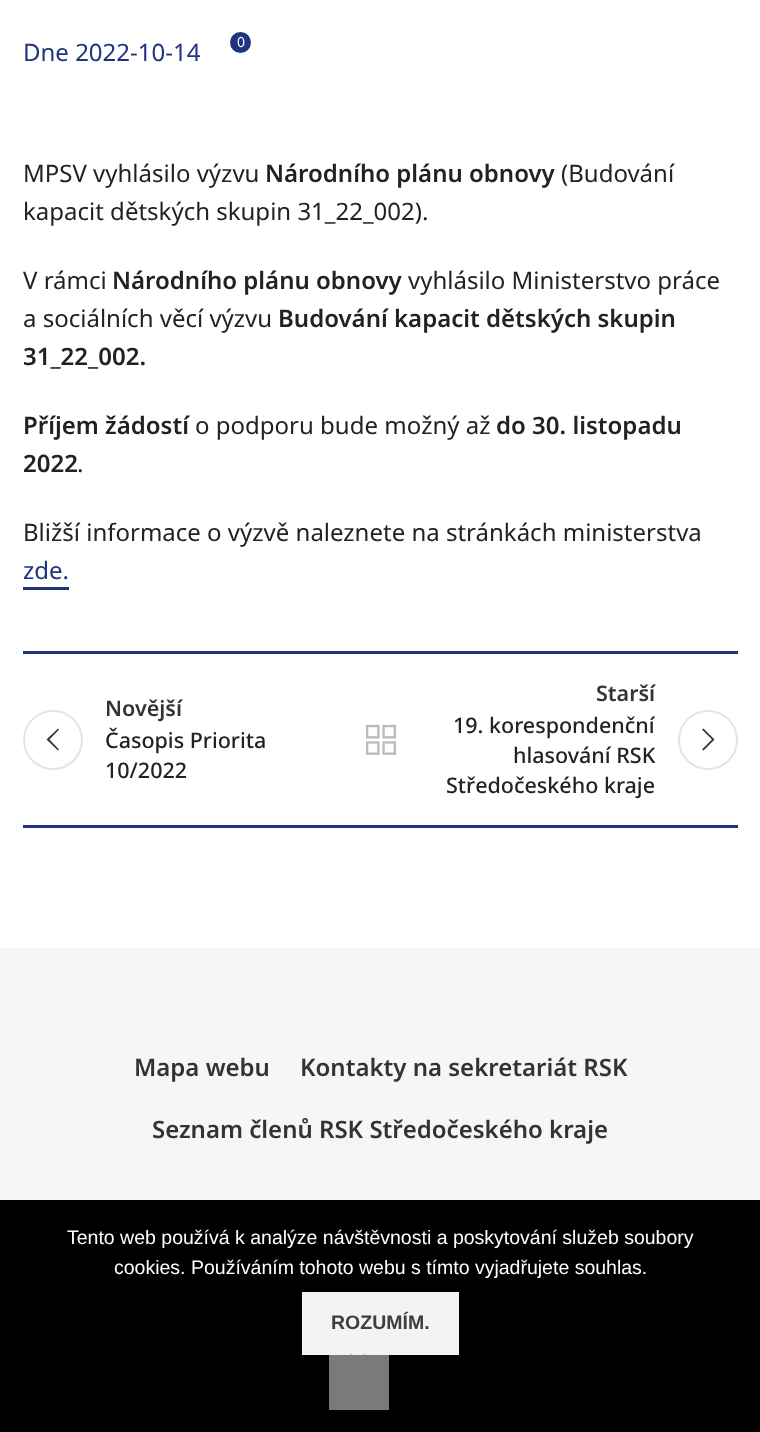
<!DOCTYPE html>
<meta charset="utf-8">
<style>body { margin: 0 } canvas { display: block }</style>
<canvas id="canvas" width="760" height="1432"></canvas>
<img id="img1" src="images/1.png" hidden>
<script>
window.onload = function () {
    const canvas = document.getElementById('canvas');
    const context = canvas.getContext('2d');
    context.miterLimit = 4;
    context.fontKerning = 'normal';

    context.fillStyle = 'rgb(255, 255, 255)';
    context.fillRect(0, 0, 760, 1432);
    context.fillStyle = 'rgb(31, 51, 126)';
    context.beginPath();
    context.arc(240.5, 42.5, 10.5, 0, 2 * Math.PI);
    context.fill();
    context.fillRect(23, 587, 46, 3);
    context.fillRect(23, 651, 715, 3);
    context.fillRect(23, 825, 715, 3);
    context.beginPath();
    context.arc(53, 740, 29, 0, 2 * Math.PI);
    context.strokeStyle = 'rgb(228, 228, 228)';
    context.lineWidth = 2;
    context.stroke();
    context.fillStyle = 'rgb(51, 51, 51)';
    context.beginPath();
    context.moveTo(59, 729.5);
    context.lineTo(58, 728.5);
    context.lineTo(46.5, 739.5);
    context.lineTo(58, 750.5);
    context.lineTo(59, 749.5);
    context.lineTo(49.5, 739.5);
    context.closePath();
    context.fill();
    context.drawImage(document.getElementById('img1'), 366, 724, 30, 31);
    context.beginPath();
    context.arc(708, 740, 29, 0, 2 * Math.PI);
    context.stroke();
    context.beginPath();
    context.moveTo(702, 729.5);
    context.lineTo(712, 739.5);
    context.lineTo(702, 749.5);
    context.lineTo(703.5, 750.5);
    context.lineTo(714.5, 739.5);
    context.lineTo(703.5, 728.5);
    context.closePath();
    context.fill();
    context.fillStyle = 'rgb(246, 246, 246)';
    context.fillRect(0, 948, 760, 252);
    context.fillStyle = 'rgb(0, 0, 0)';
    context.fillRect(0, 1200, 760, 232);
    context.fillStyle = 'rgb(243, 243, 243)';
    context.fillRect(302, 1292, 157, 63);
    context.fillStyle = 'rgba(243, 243, 243, 0.5)';
    context.fillRect(329, 1355, 60, 55);
    context.fillStyle = 'rgba(128, 128, 128, 0.5)';
    context.beginPath();
    context.moveTo(364.5, 1353.5);
    context.lineTo(367, 1356);
    context.lineTo(351, 1372);
    context.lineTo(348.5, 1369.5);
    context.closePath();
    context.fill();
    context.beginPath();
    context.moveTo(348.5, 1356);
    context.lineTo(351, 1353.5);
    context.lineTo(367, 1369.5);
    context.lineTo(364.5, 1372);
    context.closePath();
    context.fill();
    context.font = '24px Noto Sans';
    context.fillStyle = 'rgb(31, 51, 126)';
    context.fillText('Dne 2022-10-14', 23, 61);
    context.font = '14px Noto Sans';
    context.fillStyle = 'rgb(255, 255, 255)';
    context.fillText('0', 237, 47);
    context.font = '24px Noto Sans';
    context.fillStyle = 'rgb(34, 34, 34)';
    context.fillText('MPSV vyhlásilo výzvu', 23, 182);
    context.font = '600 24px Noto Sans';
    context.fillText('Národního plánu obnovy', 265, 182);
    context.font = '24px Noto Sans';
    context.fillText('(Budování', 561, 182);
    context.fillText('kapacit dětských skupin 31_22_002).', 23, 220);
    context.fillText('V rámci', 23, 289);
    context.font = '600 24px Noto Sans';
    context.fillText('Národního plánu obnovy', 112, 289);
    context.font = '24px Noto Sans';
    context.fillText('vyhlásilo Ministerstvo práce', 408, 289);
    context.fillText('a sociálních věcí výzvu', 23, 327);
    context.font = '600 24px Noto Sans';
    context.fillText('Budování kapacit dětských skupin', 278, 327);
    context.fillText('31_22_002.', 23, 365);
    context.fillText('Příjem žádostí', 23, 434);
    context.font = '24px Noto Sans';
    context.fillText('o podporu bude možný až', 195, 434);
    context.font = '600 24px Noto Sans';
    context.fillText('do 30. listopadu', 496, 434);
    context.fillText('2022', 23, 472);
    context.font = '24px Noto Sans';
    context.fillText('.', 77, 472);
    context.fillText('Bližší informace o výzvě naleznete na stránkách ministerstva', 23, 541);
    context.fillStyle = 'rgb(31, 51, 126)';
    context.fillText('zde.', 23, 579);
    context.font = '600 21.5px Noto Sans';
    context.fillStyle = 'rgb(51, 51, 51)';
    context.fillText('Novější', 105, 716);
    context.font = '500 21.5px Noto Sans';
    context.fillStyle = 'rgb(34, 34, 34)';
    context.fillText('Časopis Priorita', 105, 748);
    context.fillText('10/2022', 105, 778);
    context.font = '600 21.5px Noto Sans';
    context.fillStyle = 'rgb(51, 51, 51)';
    context.fillText('Starší', 596, 701);
    context.font = '500 21.5px Noto Sans';
    context.fillStyle = 'rgb(34, 34, 34)';
    context.fillText('19. korespondenční', 453, 733);
    context.fillText('hlasování RSK', 513, 763);
    context.fillText('Středočeského kraje', 446, 793);
    context.font = '600 24px Noto Sans';
    context.fillStyle = 'rgb(51, 51, 51)';
    context.fillText('Mapa webu', 134, 1076);
    context.fillText('Kontakty na sekretariát RSK', 300, 1076);
    context.fillText('Seznam členů RSK Středočeského kraje', 152, 1138);
    context.font = '19.5px Liberation Sans';
    context.fillStyle = 'rgb(255, 255, 255)';
    context.fillText('Tento web používá k analýze návštěvnosti a poskytování služeb soubory', 67, 1244);
    context.fillText('cookies. Používáním tohoto webu s tímto vyjadřujete souhlas.', 114, 1274);
    context.font = 'bold 19.5px Liberation Sans';
    context.fillStyle = 'rgb(62, 62, 62)';
    context.fillText('ROZUMÍM.', 331, 1329);
};
</script>
